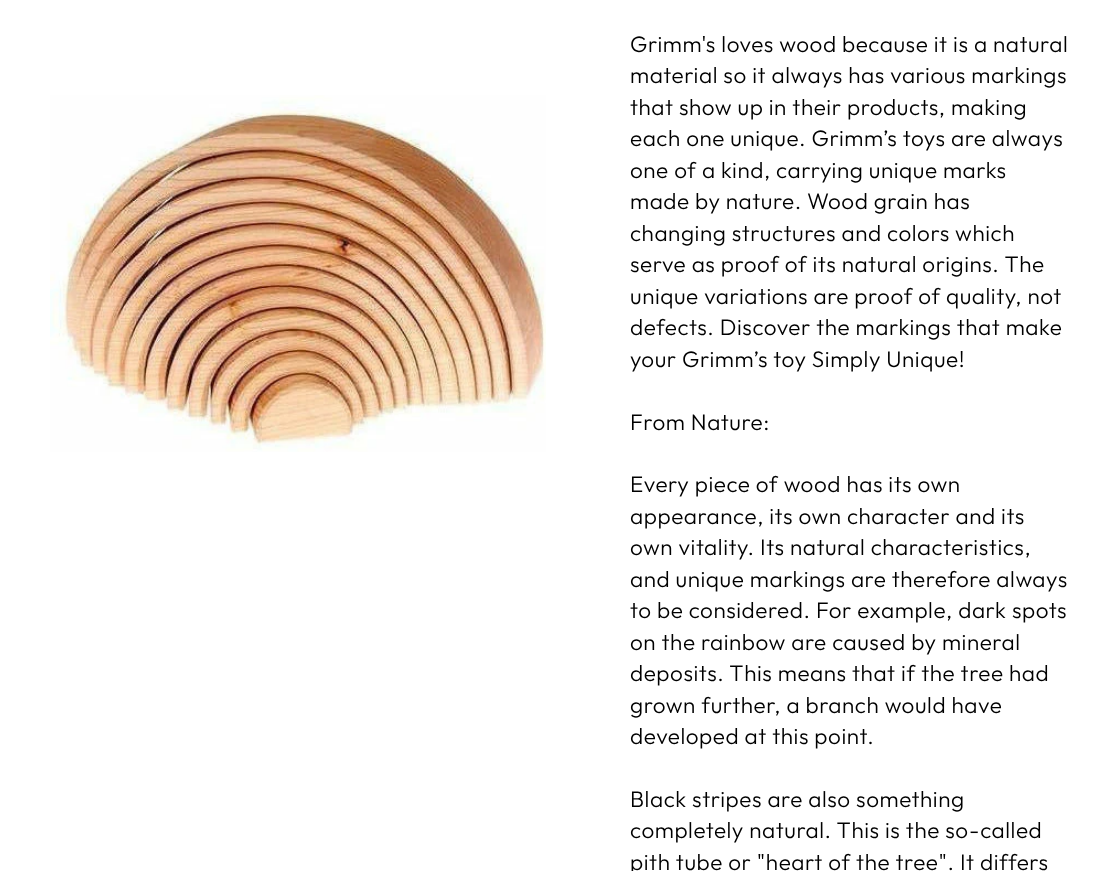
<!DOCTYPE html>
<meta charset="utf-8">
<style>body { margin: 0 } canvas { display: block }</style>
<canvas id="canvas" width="1119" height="871"></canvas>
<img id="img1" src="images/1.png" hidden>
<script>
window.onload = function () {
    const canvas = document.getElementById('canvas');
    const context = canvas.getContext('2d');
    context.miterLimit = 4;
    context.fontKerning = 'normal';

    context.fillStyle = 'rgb(255, 255, 255)';
    context.fillRect(0, 0, 1119, 871);
    context.drawImage(document.getElementById('img1'), 50, 95, 496, 357);
    context.letterSpacing = '0.55px';
    context.font = '300 22.5px Outfit';
    context.fillStyle = 'rgb(0, 0, 0)';
    context.fillText('Grimm\'s loves wood because it is a natural', 630, 52);
    context.fillText('material so it always has various markings', 630, 83);
    context.fillText('that show up in their products, making', 630, 115);
    context.fillText('each one unique. Grimm’s toys are always', 630, 146);
    context.fillText('one of a kind, carrying unique marks', 630, 178);
    context.fillText('made by nature. Wood grain has', 630, 209);
    context.fillText('changing structures and colors which', 630, 241);
    context.fillText('serve as proof of its natural origins. The', 630, 272);
    context.fillText('unique variations are proof of quality, not', 630, 304);
    context.fillText('defects. Discover the markings that make', 630, 335);
    context.fillText('your Grimm’s toy Simply Unique!', 630, 367);
    context.fillText('From Nature:', 630, 430);
    context.fillText('Every piece of wood has its own', 630, 492);
    context.fillText('appearance, its own character and its', 630, 524);
    context.fillText('own vitality. Its natural characteristics,', 630, 555);
    context.fillText('and unique markings are therefore always', 630, 587);
    context.fillText('to be considered. For example, dark spots', 630, 618);
    context.fillText('on the rainbow are caused by mineral', 630, 650);
    context.fillText('deposits. This means that if the tree had', 630, 681);
    context.fillText('grown further, a branch would have', 630, 713);
    context.fillText('developed at this point.', 630, 744);
    context.fillText('Black stripes are also something', 630, 807);
    context.fillText('completely natural. This is the so-called', 630, 838);
    context.fillText('pith tube or "heart of the tree". It differs', 630, 870);
};
</script>
